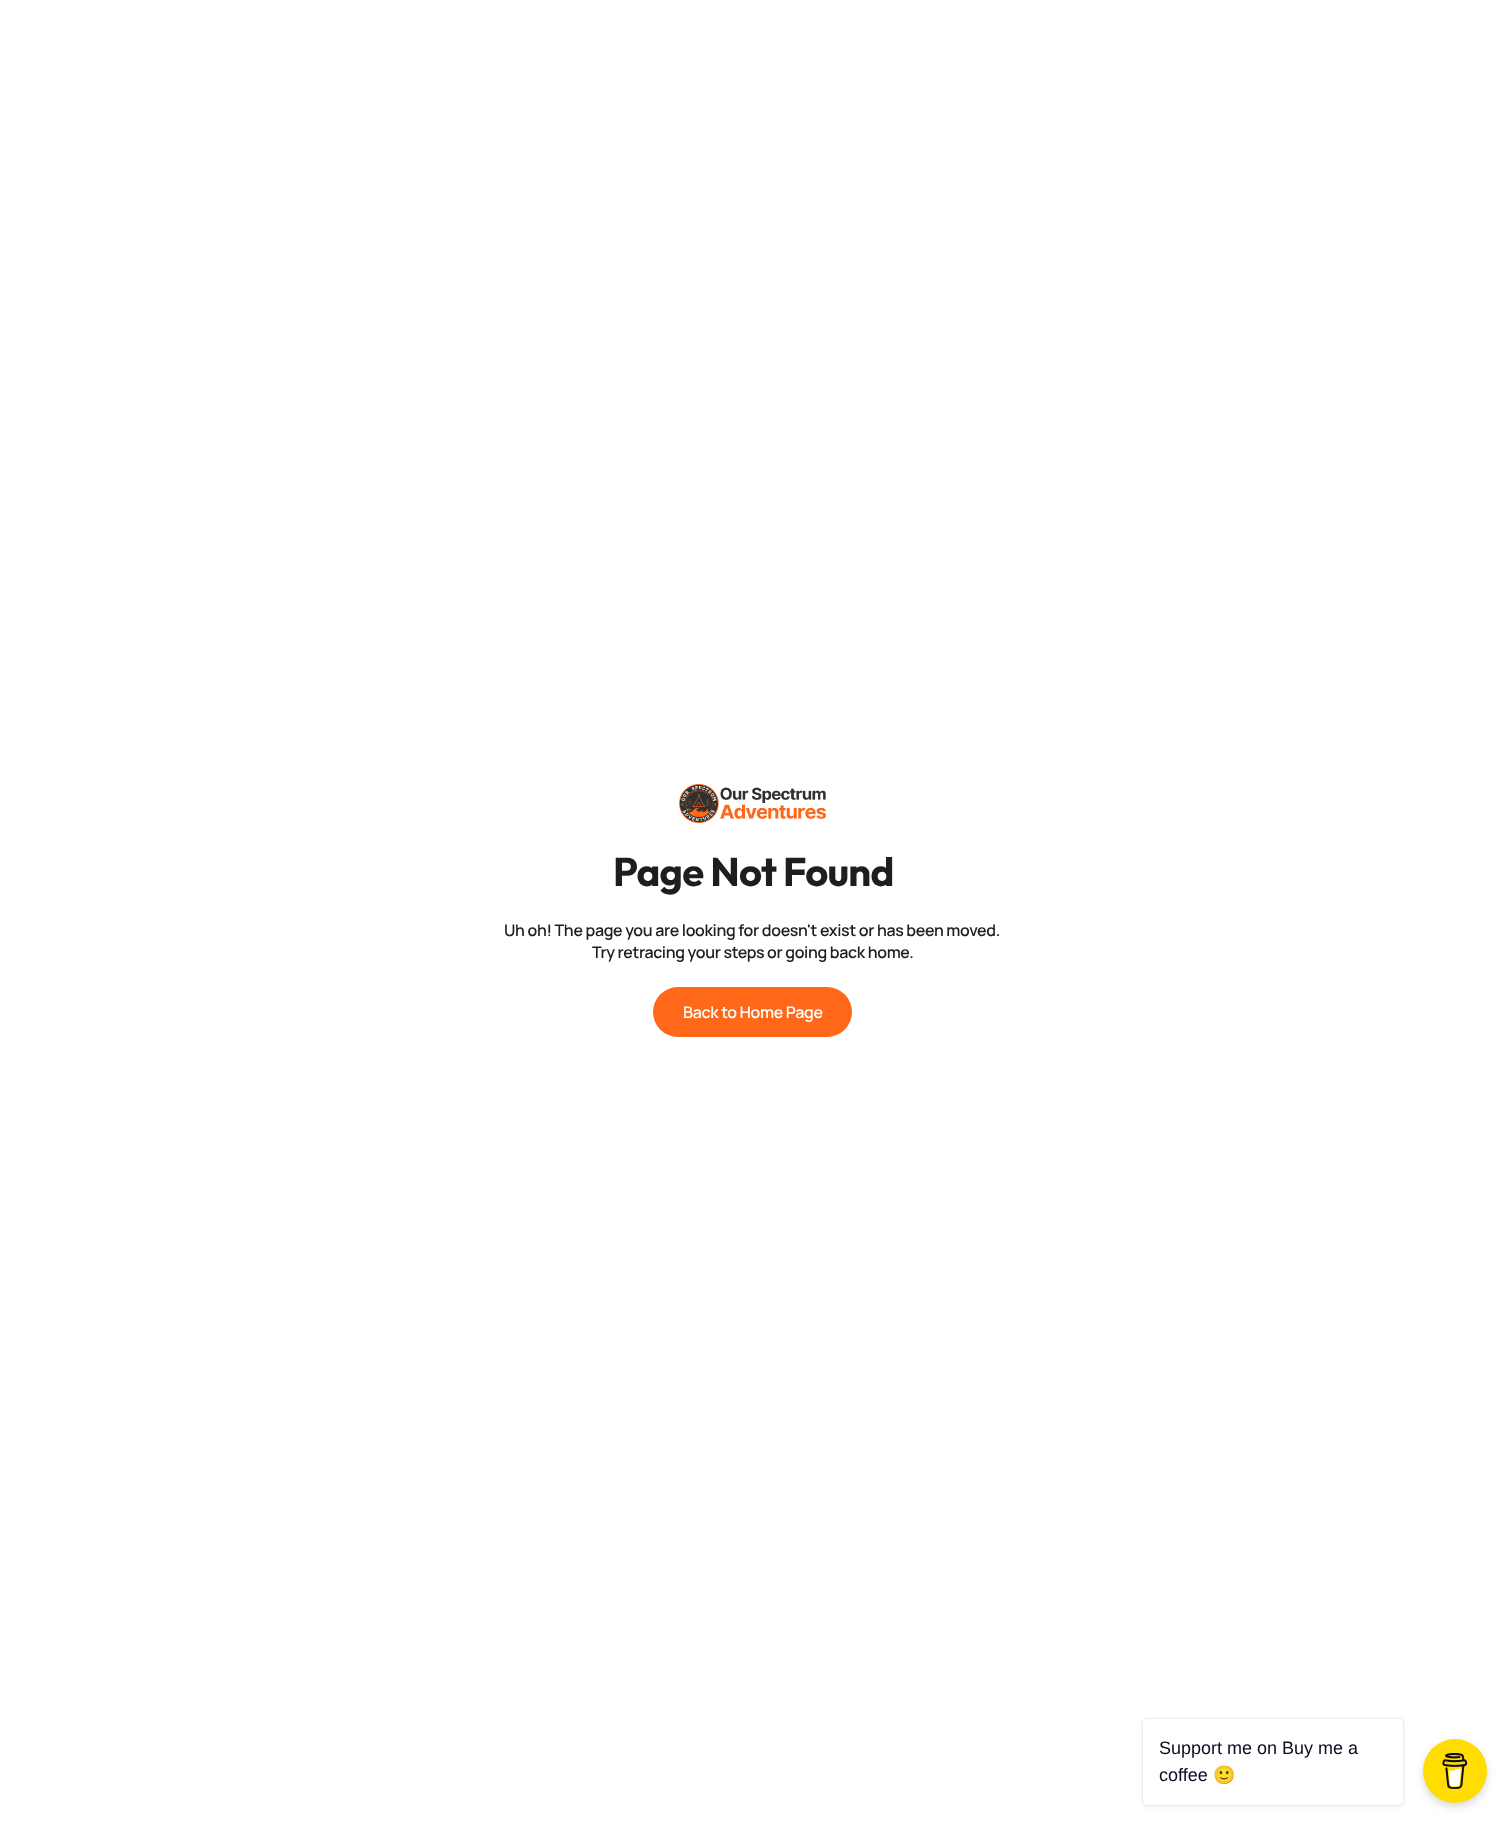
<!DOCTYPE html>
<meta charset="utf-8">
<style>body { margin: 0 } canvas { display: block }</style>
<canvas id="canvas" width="1505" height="1821"></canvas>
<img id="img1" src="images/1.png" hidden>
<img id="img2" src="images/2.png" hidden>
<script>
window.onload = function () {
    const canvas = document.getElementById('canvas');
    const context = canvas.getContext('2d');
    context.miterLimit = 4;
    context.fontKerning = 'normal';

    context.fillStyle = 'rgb(255, 255, 255)';
    context.fillRect(0, 0, 1505, 1821);
    context.drawImage(document.getElementById('img1'), 679, 784, 147, 39);
    context.fillStyle = 'rgb(255, 103, 25)';
    context.beginPath();
    context.roundRect(653, 987, 199, 50, 25);
    context.fill();
    context.fillStyle = 'rgba(0, 0, 0, 0.15)';
    context.filter = 'blur(1px)';
    context.beginPath();
    context.roundRect(1143, 1719, 260, 86, 4);
    context.fill();
    context.filter = 'none';
    context.fillStyle = 'rgba(0, 0, 0, 0.05)';
    context.filter = 'blur(2.5px)';
    context.beginPath();
    context.roundRect(1143, 1721, 260, 86, 4);
    context.fill();
    context.filter = 'none';
    context.fillStyle = 'rgb(255, 255, 255)';
    context.beginPath();
    context.roundRect(1143, 1719, 260, 86, 4);
    context.fill();
    context.fillStyle = 'rgba(0, 0, 0, 0.15)';
    context.filter = 'blur(4px)';
    context.beginPath();
    context.roundRect(1423, 1743, 64, 64, 32);
    context.fill();
    context.filter = 'none';
    context.fillStyle = 'rgb(255, 221, 0)';
    context.beginPath();
    context.arc(1455, 1771, 32, 0, 2 * Math.PI);
    context.fill();
    context.drawImage(document.getElementById('img2'), 1442, 1753, 26, 36);
    context.letterSpacing = '-0.75px';
    context.font = 'bold 40px Outfit';
    context.fillStyle = 'rgb(30, 30, 30)';
    context.fillText('Page Not Found', 613, 886);
    context.letterSpacing = '-0.32px';
    context.font = '600 16px Manrope';
    context.fillText('Uh oh! The page you are looking for doesn\'t exist or has been moved.', 504, 936);
    context.fillText('Try retracing your steps or going back home.', 592, 958);
    context.fillStyle = 'rgb(255, 255, 255)';
    context.fillText('Back to Home Page', 683, 1018);
    context.letterSpacing = '0px';
    context.font = '18px Liberation Sans';
    context.fillStyle = 'rgb(13, 12, 34)';
    context.fillText('Support me on Buy me a', 1159, 1754);
    context.fillText('coffee', 1159, 1781);
    context.font = '18px Noto Color Emoji';
    context.fillText('🙂', 1213, 1781);
};
</script>
